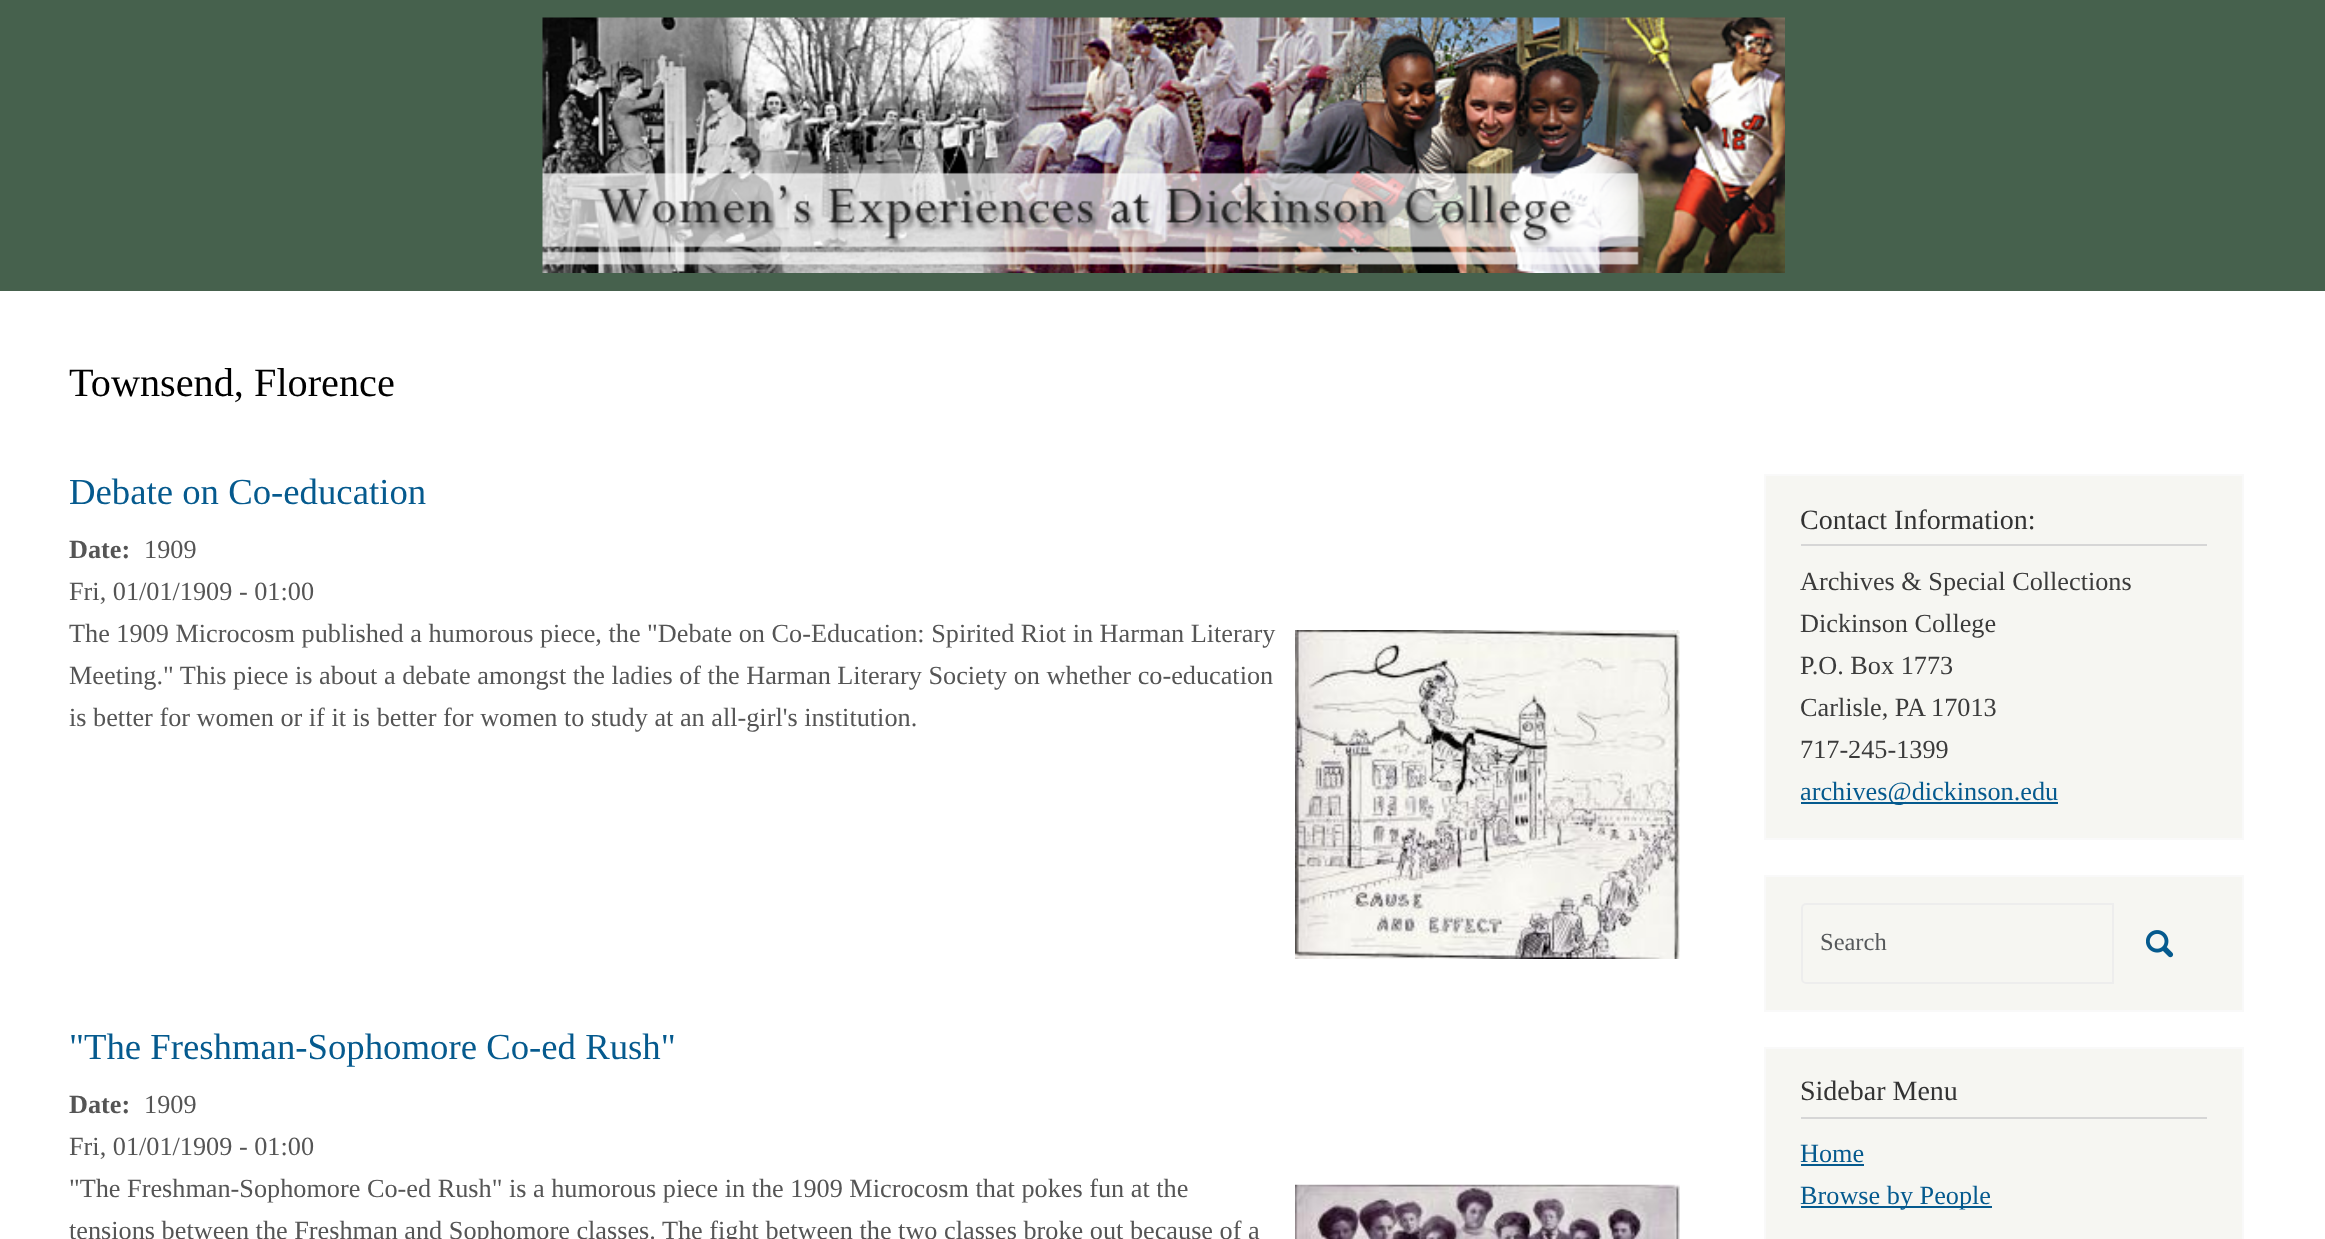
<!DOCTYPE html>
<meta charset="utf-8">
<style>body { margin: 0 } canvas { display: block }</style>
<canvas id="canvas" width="2325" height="1239"></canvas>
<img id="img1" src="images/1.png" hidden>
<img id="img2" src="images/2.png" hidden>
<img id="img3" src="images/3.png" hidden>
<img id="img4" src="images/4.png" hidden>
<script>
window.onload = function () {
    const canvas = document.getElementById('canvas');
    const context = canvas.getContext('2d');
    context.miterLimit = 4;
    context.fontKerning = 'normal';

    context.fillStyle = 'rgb(255, 255, 255)';
    context.fillRect(0, 0, 2325, 1239);
    context.fillStyle = 'rgb(70, 97, 77)';
    context.fillRect(0, 0, 2325, 291);
    context.drawImage(document.getElementById('img1'), 542, 17, 1243, 256);
    context.drawImage(document.getElementById('img2'), 1295, 630, 385, 329);
    context.drawImage(document.getElementById('img3'), 1295, 1184, 385, 55);
    context.fillStyle = 'rgb(246, 246, 242)';
    context.beginPath();
    context.rect(1765, 475, 478, 364);
    context.fill();
    context.strokeStyle = 'rgb(249, 249, 249)';
    context.lineWidth = 2;
    context.stroke();
    context.fillStyle = 'rgb(214, 214, 214)';
    context.fillRect(1801, 544, 406, 2);
    context.fillStyle = 'rgb(5, 90, 142)';
    context.fillRect(1801, 802, 257, 2);
    context.fillStyle = 'rgb(246, 246, 242)';
    context.beginPath();
    context.rect(1765, 876, 478, 135);
    context.fill();
    context.stroke();
    context.beginPath();
    context.roundRect(1802, 904, 311, 79, [4, 0, 0, 4]);
    context.strokeStyle = 'rgb(237, 237, 237)';
    context.stroke();
    context.drawImage(document.getElementById('img4'), 2146, 930, 28, 28);
    context.beginPath();
    context.rect(1765, 1048, 478, 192);
    context.fill();
    context.strokeStyle = 'rgb(249, 249, 249)';
    context.stroke();
    context.fillStyle = 'rgb(214, 214, 214)';
    context.fillRect(1801, 1117, 406, 2);
    context.fillStyle = 'rgb(5, 90, 142)';
    context.fillRect(1801, 1164, 63, 2);
    context.fillRect(1801, 1206, 191, 2);
    context.font = '40.25px Liberation Serif';
    context.fillStyle = 'rgb(0, 0, 0)';
    context.fillText('Townsend, Florence', 69, 396);
    context.font = '36.75px Liberation Serif';
    context.fillStyle = 'rgb(5, 90, 142)';
    context.fillText('Debate on Co-education', 69, 504);
    context.font = 'bold 26.25px Liberation Serif';
    context.fillStyle = 'rgb(85, 85, 85)';
    context.fillText('Date:', 69, 558);
    context.font = '26.25px Liberation Serif';
    context.fillText('1909', 144, 558);
    context.fillText('Fri, 01/01/1909 - 01:00', 69, 600);
    context.fillText('The 1909 Microcosm published a humorous piece, the "Debate on Co-Education: Spirited Riot in Harman Literary', 69, 642);
    context.fillText('Meeting." This piece is about a debate amongst the ladies of the Harman Literary Society on whether co-education', 69, 684);
    context.fillText('is better for women or if it is better for women to study at an all-girl\'s institution.', 69, 726);
    context.font = '36.75px Liberation Serif';
    context.fillStyle = 'rgb(5, 90, 142)';
    context.fillText('"The Freshman-Sophomore Co-ed Rush"', 69, 1059);
    context.font = 'bold 26.25px Liberation Serif';
    context.fillStyle = 'rgb(85, 85, 85)';
    context.fillText('Date:', 69, 1113);
    context.font = '26.25px Liberation Serif';
    context.fillText('1909', 144, 1113);
    context.fillText('Fri, 01/01/1909 - 01:00', 69, 1155);
    context.fillText('"The Freshman-Sophomore Co-ed Rush" is a humorous piece in the 1909 Microcosm that pokes fun at the', 69, 1197);
    context.fillText('tensions between the Freshman and Sophomore classes. The fight between the two classes broke out because of a', 69, 1239);
    context.font = '28px Liberation Serif';
    context.fillStyle = 'rgb(51, 51, 51)';
    context.fillText('Contact Information:', 1800, 529);
    context.font = '26.25px Liberation Serif';
    context.fillStyle = 'rgb(59, 59, 59)';
    context.fillText('Archives & Special Collections', 1800, 590);
    context.fillText('Dickinson College', 1800, 632);
    context.fillText('P.O. Box 1773', 1800, 674);
    context.fillText('Carlisle, PA 17013', 1800, 716);
    context.fillText('717-245-1399', 1800, 758);
    context.fillStyle = 'rgb(5, 90, 142)';
    context.fillText('archives@dickinson.edu', 1800, 800);
    context.font = '24.5px Liberation Serif';
    context.fillStyle = 'rgb(86, 89, 91)';
    context.fillText('Search', 1820, 950);
    context.font = '28px Liberation Serif';
    context.fillStyle = 'rgb(51, 51, 51)';
    context.fillText('Sidebar Menu', 1800, 1100);
    context.font = '26.25px Liberation Serif';
    context.fillStyle = 'rgb(5, 90, 142)';
    context.fillText('Home', 1800, 1162);
    context.fillText('Browse by People', 1800, 1204);
};
</script>
